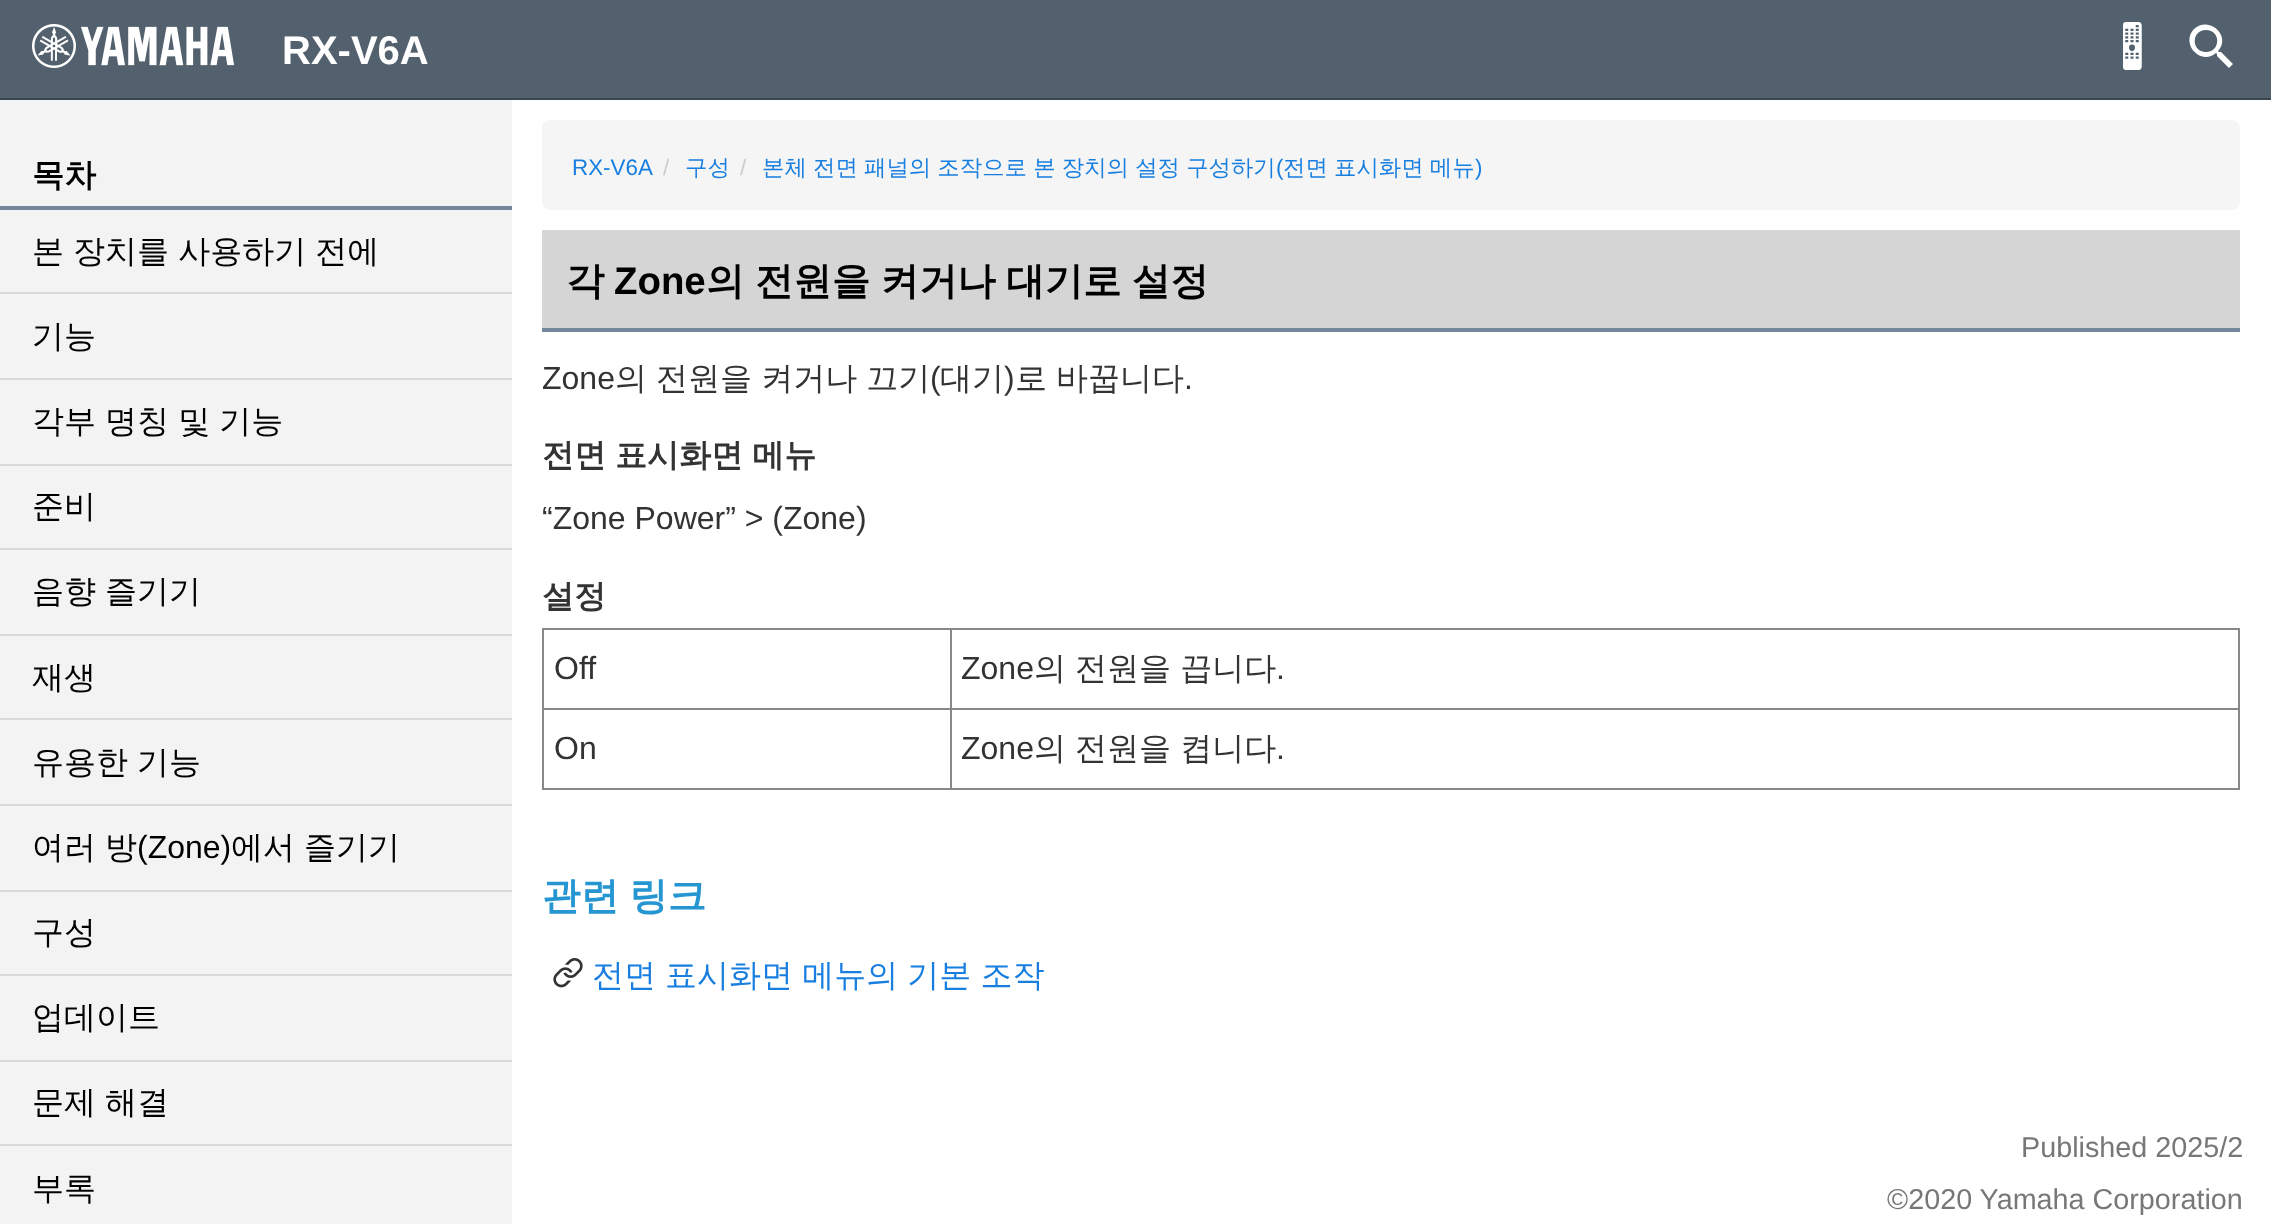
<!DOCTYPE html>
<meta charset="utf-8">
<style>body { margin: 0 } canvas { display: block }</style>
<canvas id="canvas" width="2271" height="1224"></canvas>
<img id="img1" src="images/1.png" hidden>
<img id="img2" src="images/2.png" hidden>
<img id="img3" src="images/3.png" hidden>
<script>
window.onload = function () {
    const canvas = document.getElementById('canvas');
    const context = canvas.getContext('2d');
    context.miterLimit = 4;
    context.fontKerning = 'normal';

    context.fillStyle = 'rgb(255, 255, 255)';
    context.fillRect(0, 0, 2271, 1224);
    context.fillStyle = 'rgb(243, 243, 244)';
    context.fillRect(0, 100, 512, 1124);
    context.fillStyle = 'rgb(117, 135, 155)';
    context.fillRect(0, 206, 512, 4);
    context.fillStyle = 'rgb(217, 217, 217)';
    context.fillRect(0, 292, 512, 2);
    context.fillRect(0, 378, 512, 2);
    context.fillRect(0, 464, 512, 2);
    context.fillRect(0, 548, 512, 2);
    context.fillRect(0, 634, 512, 2);
    context.fillRect(0, 718, 512, 2);
    context.fillRect(0, 804, 512, 2);
    context.fillRect(0, 890, 512, 2);
    context.fillRect(0, 974, 512, 2);
    context.fillRect(0, 1060, 512, 2);
    context.fillRect(0, 1144, 512, 2);
    context.fillStyle = 'rgb(83, 96, 109)';
    context.fillRect(0, 0, 2271, 98);
    context.fillStyle = 'rgb(58, 70, 81)';
    context.fillRect(0, 98, 2271, 2);
    context.drawImage(document.getElementById('img1'), 32, 24, 202, 44);
    context.drawImage(document.getElementById('img2'), 2123, 22, 19, 48);
    context.fillStyle = 'rgb(255, 255, 255)';
    context.beginPath();
    context.moveTo(2221, 52);
    context.lineTo(2219, 52);
    context.lineTo(2218, 51);
    context.bezierCurveTo(2232, 36, 2209, 15, 2194, 29);
    context.bezierCurveTo(2180, 44, 2201, 66, 2216, 53);
    context.lineTo(2217, 54);
    context.lineTo(2217, 56);
    context.lineTo(2229, 68);
    context.lineTo(2233, 64);
    context.closePath();
    context.moveTo(2206, 52);
    context.bezierCurveTo(2191, 52, 2191, 30, 2206, 30);
    context.bezierCurveTo(2221, 30, 2221, 52, 2206, 52);
    context.closePath();
    context.fill();
    context.fillStyle = 'rgb(245, 245, 245)';
    context.beginPath();
    context.roundRect(542, 120, 1698, 90, 8);
    context.fill();
    context.fillStyle = 'rgb(213, 213, 213)';
    context.fillRect(542, 230, 1698, 98);
    context.fillStyle = 'rgb(117, 135, 155)';
    context.fillRect(542, 328, 1698, 4);
    context.fillStyle = 'rgb(136, 136, 136)';
    context.fillRect(950, 628, 1290, 2);
    context.fillRect(950, 708, 1290, 2);
    context.fillRect(2238, 708, 2, 82);
    context.fillRect(950, 788, 1290, 2);
    context.fillRect(950, 708, 2, 82);
    context.fillRect(542, 708, 410, 2);
    context.fillRect(950, 628, 2, 82);
    context.fillRect(542, 628, 410, 2);
    context.fillRect(542, 788, 410, 2);
    context.fillRect(542, 708, 2, 82);
    context.fillRect(542, 628, 2, 82);
    context.fillRect(2238, 628, 2, 82);
    context.drawImage(document.getElementById('img3'), 553, 958, 30, 30);
    context.font = 'bold 32px WenQuanYi Zen Hei';
    context.fillStyle = 'rgb(0, 0, 0)';
    context.fillText('목차', 32, 186);
    context.wordSpacing = '-0.5px';
    context.font = '500 32px WenQuanYi Zen Hei';
    context.fillText('본 장치를 사용하기 전에', 32, 262);
    context.wordSpacing = '0px';
    context.fillText('기능', 32, 347);
    context.wordSpacing = '-0.5px';
    context.fillText('각부 명칭 및 기능', 32, 432);
    context.wordSpacing = '0px';
    context.fillText('준비', 32, 517);
    context.wordSpacing = '-0.5px';
    context.fillText('음향 즐기기', 32, 602);
    context.wordSpacing = '0px';
    context.fillText('재생', 32, 688);
    context.wordSpacing = '-0.5px';
    context.fillText('유용한 기능', 32, 773);
    context.fillText('여러 방', 32, 858);
    context.wordSpacing = '0px';
    context.font = '32px Liberation Sans';
    context.fillText('(Zone)', 137, 858);
    context.wordSpacing = '-0.5px';
    context.font = '500 32px WenQuanYi Zen Hei';
    context.fillText('에서 즐기기', 231, 858);
    context.wordSpacing = '0px';
    context.fillText('구성', 32, 943);
    context.fillText('업데이트', 32, 1028);
    context.wordSpacing = '-0.5px';
    context.fillText('문제 해결', 32, 1113);
    context.wordSpacing = '0px';
    context.fillText('부록', 32, 1199);
    context.font = 'bold 40px Liberation Sans';
    context.fillStyle = 'rgb(255, 255, 255)';
    context.fillText('RX-V6A', 282, 64);
    context.font = '22.4px Liberation Sans';
    context.fillStyle = 'rgb(24, 127, 224)';
    context.fillText('RX-V6A', 572, 175);
    context.fillStyle = 'rgb(204, 204, 204)';
    context.fillText('/', 663, 175);
    context.font = '500 22.4px WenQuanYi Zen Hei';
    context.fillStyle = 'rgb(24, 127, 224)';
    context.fillText('구성', 685, 175);
    context.font = '22.4px Liberation Sans';
    context.fillStyle = 'rgb(204, 204, 204)';
    context.fillText('/', 740, 175);
    context.wordSpacing = '-0.5px';
    context.font = '500 22.4px WenQuanYi Zen Hei';
    context.fillStyle = 'rgb(24, 127, 224)';
    context.fillText('본체 전면 패널의 조작으로 본 장치의 설정 구성하기', 762, 175);
    context.wordSpacing = '0px';
    context.font = '22.4px Liberation Sans';
    context.fillText('(', 1276, 175);
    context.wordSpacing = '-0.5px';
    context.font = '500 22.4px WenQuanYi Zen Hei';
    context.fillText('전면 표시화면 메뉴', 1283, 175);
    context.wordSpacing = '0px';
    context.font = '22.4px Liberation Sans';
    context.fillText(')', 1475, 175);
    context.font = 'bold 38.4px WenQuanYi Zen Hei';
    context.fillStyle = 'rgb(0, 0, 0)';
    context.fillText('각', 566, 294);
    context.font = 'bold 38.4px Liberation Sans';
    context.fillText('Zone', 614, 294);
    context.wordSpacing = '-1px';
    context.font = 'bold 38.4px WenQuanYi Zen Hei';
    context.fillText('의 전원을 켜거나 대기로 설정', 706, 294);
    context.wordSpacing = '0px';
    context.font = '32px Liberation Sans';
    context.fillStyle = 'rgb(51, 51, 51)';
    context.fillText('Zone', 542, 389);
    context.wordSpacing = '-0.5px';
    context.font = '500 32px WenQuanYi Zen Hei';
    context.fillText('의 전원을 켜거나 끄기', 615, 389);
    context.wordSpacing = '0px';
    context.font = '32px Liberation Sans';
    context.fillText('(', 930, 389);
    context.font = '500 32px WenQuanYi Zen Hei';
    context.fillText('대기', 940, 389);
    context.font = '32px Liberation Sans';
    context.fillText(')', 1004, 389);
    context.wordSpacing = '-0.5px';
    context.font = '500 32px WenQuanYi Zen Hei';
    context.fillText('로 바꿉니다', 1015, 389);
    context.wordSpacing = '0px';
    context.font = '32px Liberation Sans';
    context.fillText('.', 1184, 389);
    context.wordSpacing = '-0.5px';
    context.font = 'bold 32px WenQuanYi Zen Hei';
    context.fillText('전면 표시화면 메뉴', 542, 466);
    context.wordSpacing = '0px';
    context.font = '32px Liberation Sans';
    context.fillText('“Zone Power” > (Zone)', 542, 529);
    context.font = 'bold 32px WenQuanYi Zen Hei';
    context.fillText('설정', 542, 607);
    context.font = '32px Liberation Sans';
    context.fillText('Off', 554, 679);
    context.fillText('Zone', 961, 679);
    context.wordSpacing = '-0.5px';
    context.font = '500 32px WenQuanYi Zen Hei';
    context.fillText('의 전원을 끕니다', 1034, 679);
    context.wordSpacing = '0px';
    context.font = '32px Liberation Sans';
    context.fillText('.', 1276, 679);
    context.fillText('On', 554, 759);
    context.fillText('Zone', 961, 759);
    context.wordSpacing = '-0.5px';
    context.font = '500 32px WenQuanYi Zen Hei';
    context.fillText('의 전원을 켭니다', 1034, 759);
    context.wordSpacing = '0px';
    context.font = '32px Liberation Sans';
    context.fillText('.', 1276, 759);
    context.wordSpacing = '-1px';
    context.font = 'bold 38.4px WenQuanYi Zen Hei';
    context.fillStyle = 'rgb(37, 150, 209)';
    context.fillText('관련 링크', 542, 909);
    context.wordSpacing = '-0.5px';
    context.font = '500 32px WenQuanYi Zen Hei';
    context.fillStyle = 'rgb(24, 127, 224)';
    context.fillText('전면 표시화면 메뉴의 기본 조작', 592, 986);
    context.wordSpacing = '0px';
    context.font = '28.75px Liberation Sans';
    context.fillStyle = 'rgb(119, 119, 119)';
    context.fillText('Published 2025/2', 2021, 1157);
    context.fillText('©2020 Yamaha Corporation', 1887, 1209);
};
</script>
